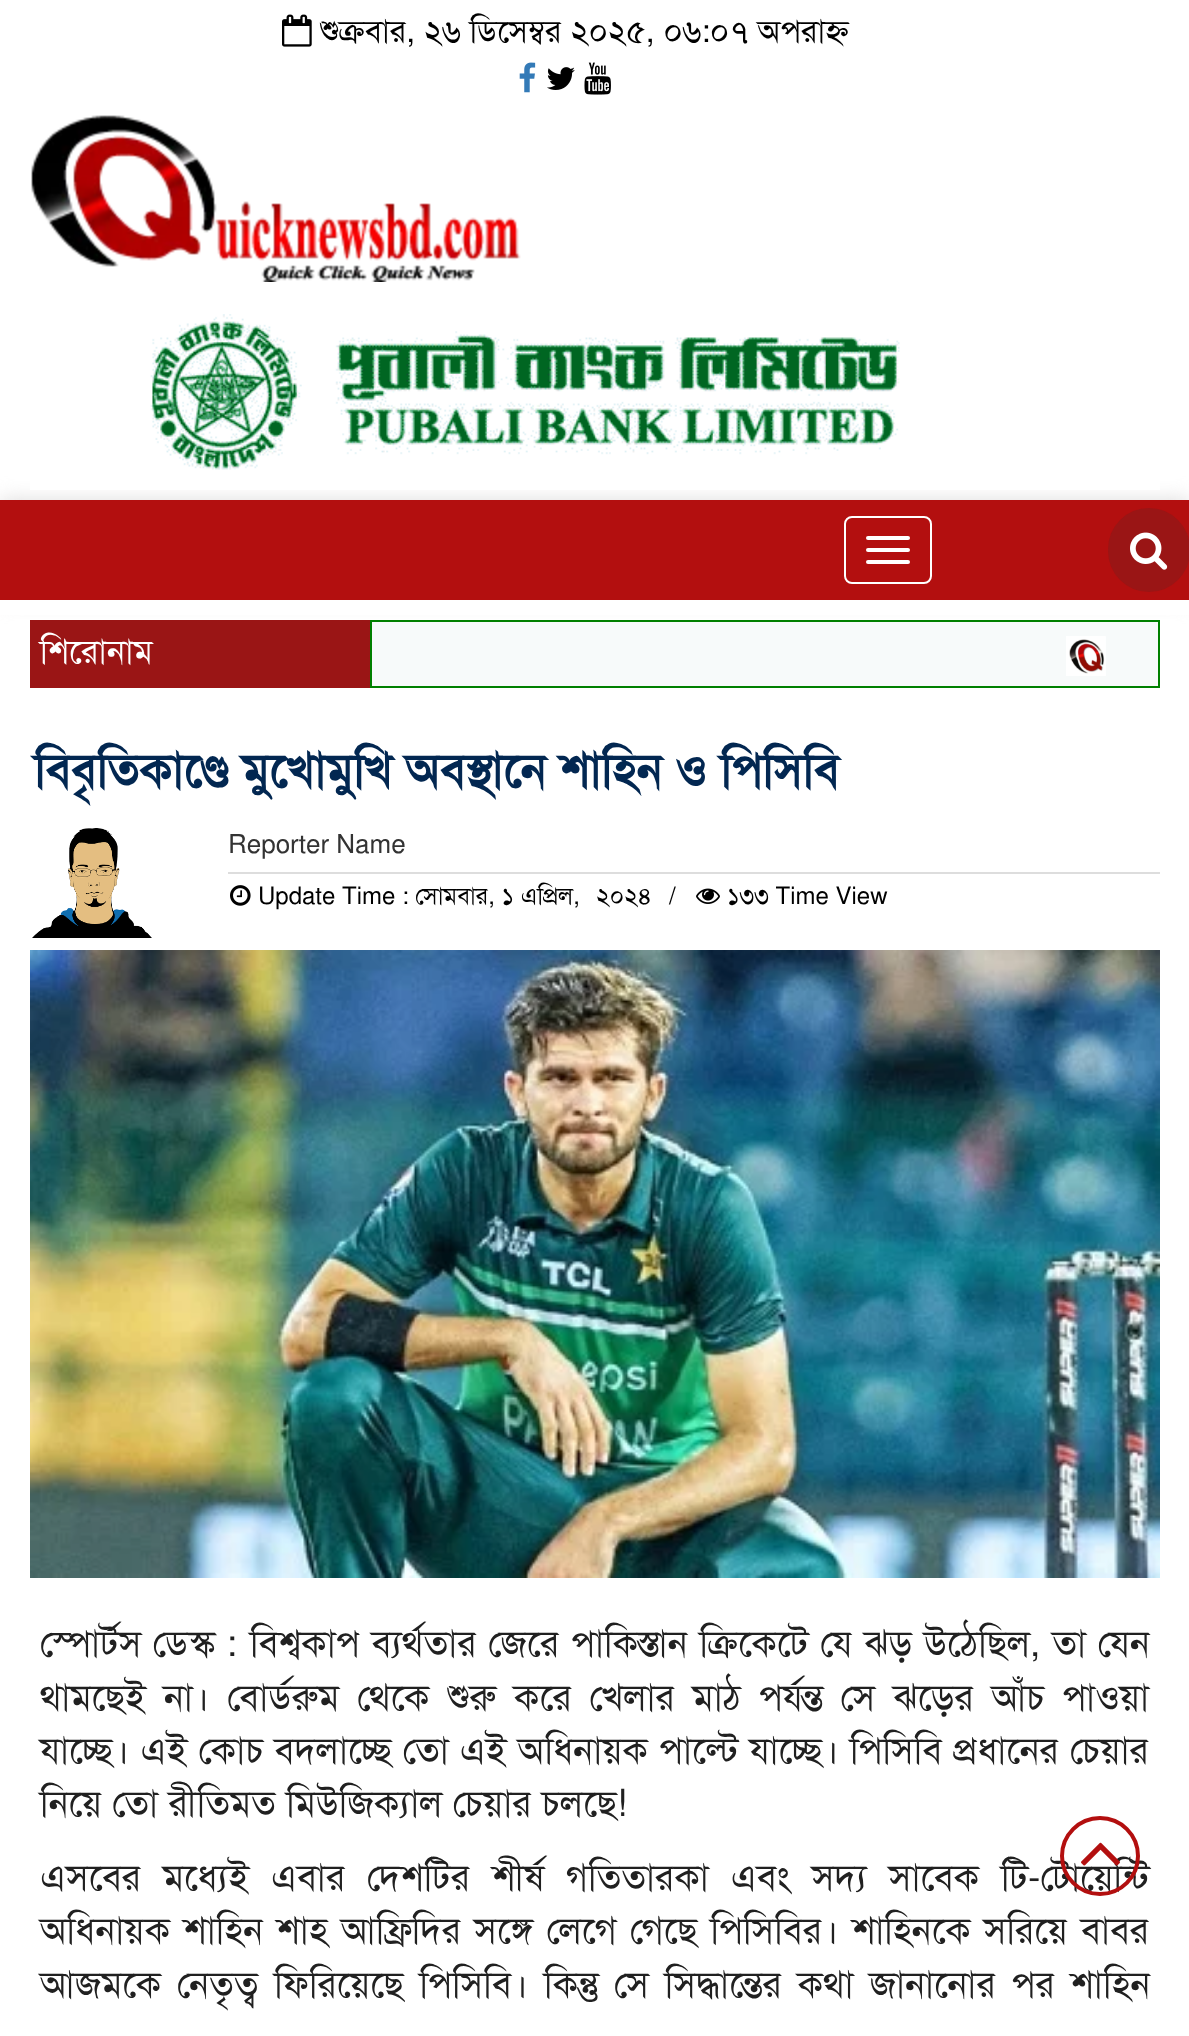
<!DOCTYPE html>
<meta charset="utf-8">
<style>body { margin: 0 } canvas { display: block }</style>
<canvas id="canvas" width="1189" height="2036"></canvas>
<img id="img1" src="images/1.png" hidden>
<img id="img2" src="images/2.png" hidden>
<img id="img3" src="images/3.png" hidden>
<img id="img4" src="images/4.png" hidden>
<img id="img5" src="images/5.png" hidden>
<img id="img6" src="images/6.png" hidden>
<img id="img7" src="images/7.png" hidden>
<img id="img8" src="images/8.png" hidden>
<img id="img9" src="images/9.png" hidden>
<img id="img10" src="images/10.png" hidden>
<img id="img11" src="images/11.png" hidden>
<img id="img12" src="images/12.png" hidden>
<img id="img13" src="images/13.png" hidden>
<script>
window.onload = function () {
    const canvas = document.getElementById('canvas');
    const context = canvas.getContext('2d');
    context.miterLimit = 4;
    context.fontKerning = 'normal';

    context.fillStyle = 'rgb(255, 255, 255)';
    context.fillRect(0, 0, 1189, 2036);
    context.drawImage(document.getElementById('img1'), 282, 14, 30, 33);
    context.drawImage(document.getElementById('img2'), 519, 62, 17, 31);
    context.drawImage(document.getElementById('img3'), 547, 67, 28, 23);
    context.drawImage(document.getElementById('img4'), 584, 62, 27, 33);
    context.drawImage(document.getElementById('img5'), 31, 115, 490, 167);
    context.fillStyle = 'rgb(221, 219, 219)';
    context.filter = 'blur(10px)';
    context.beginPath();
    context.rect(0, 500, 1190, 100);
    context.fill();
    context.filter = 'none';
    context.drawImage(document.getElementById('img6'), 30, 314, 1130, 176);
    context.fillStyle = 'rgb(179, 15, 15)';
    context.fillRect(0, 500, 1189, 100);
    context.beginPath();
    context.roundRect(845, 517, 86, 66, 7);
    context.strokeStyle = 'rgb(255, 255, 255)';
    context.lineWidth = 2;
    context.stroke();
    context.fillStyle = 'rgb(255, 255, 255)';
    context.beginPath();
    context.roundRect(866, 536, 44, 4, 2);
    context.fill();
    context.beginPath();
    context.roundRect(866, 548, 44, 4, 2);
    context.fill();
    context.beginPath();
    context.roundRect(866, 560, 44, 4, 2);
    context.fill();
    context.fillStyle = 'rgb(154, 21, 21)';
    context.beginPath();
    context.roundRect(1108, 508, 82, 84, 41);
    context.fill();
    context.drawImage(document.getElementById('img7'), 1130, 532, 38, 38);
    context.fillStyle = 'rgb(255, 255, 255)';
    context.fillRect(0, 600, 1189, 15);
    context.fillStyle = 'rgb(154, 21, 21)';
    context.fillRect(30, 620, 340, 68);
    context.fillStyle = 'rgb(247, 250, 250)';
    context.beginPath();
    context.rect(371, 621, 788, 66);
    context.fill();
    context.strokeStyle = 'rgb(0, 128, 0)';
    context.stroke();
    context.drawImage(document.getElementById('img8'), 1066, 636, 40, 40);
    context.drawImage(document.getElementById('img9'), 32, 828, 120, 110);
    context.fillStyle = 'rgb(221, 221, 221)';
    context.fillRect(228, 872, 932, 2);
    context.drawImage(document.getElementById('img10'), 230, 885, 21, 21);
    context.drawImage(document.getElementById('img11'), 696, 888, 24, 16);
    context.drawImage(document.getElementById('img12'), 30, 950, 1130, 628);
    context.font = '32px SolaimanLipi';
    context.fillStyle = 'rgb(0, 0, 0)';
    context.fillText('শুক্রবার, ২৬ ডিসেম্বর ২০২৫, ০৬:০৭ অপরাহ্ন', 320, 42);
    context.font = '34px SolaimanLipi';
    context.fillStyle = 'rgb(255, 255, 255)';
    context.fillText('শিরোনাম', 40, 663);
    context.font = 'bold 48px SolaimanLipi';
    context.fillStyle = 'rgb(2, 39, 81)';
    context.fillText('বিবৃতিকাণ্ডে মুখোমুখি অবস্থানে শাহিন ও পিসিবি', 34, 787);
    context.font = '26px SolaimanLipi';
    context.fillStyle = 'rgb(51, 51, 51)';
    context.fillText('Reporter Name', 228, 853);
    context.font = '24px SolaimanLipi';
    context.fillStyle = 'rgb(0, 0, 0)';
    context.fillText('Update Time : সোমবার, ১ এপ্রিল,', 258, 904);
    context.fillText('২০২৪', 596, 904);
    context.fillText('/', 669, 904);
    context.fillText('১৩৩ Time View', 727, 904);
    context.wordSpacing = '1px';
    context.font = '37.3px SolaimanLipi';
    context.fillStyle = 'rgb(32, 32, 32)';
    context.fillText('স্পোর্টস ডেস্ক :', 40, 1656);
    context.wordSpacing = '1.4px';
    context.fillText('বিশ্বকাপ ব্যর্থতার জেরে পাকিস্তান ক্রিকেটে যে ঝড় উঠেছিল, তা যেন', 250, 1656);
    context.wordSpacing = '7.4px';
    context.fillText('থামছেই না। বোর্ডরুম থেকে শুরু করে খেলার মাঠ পর্যন্ত সে ঝড়ের আঁচ পাওয়া', 40, 1710);
    context.wordSpacing = '0.75px';
    context.fillText('যাচ্ছে। এই কোচ বদলাচ্ছে তো এই অধিনায়ক পাল্টে যাচ্ছে। পিসিবি প্রধানের চেয়ার', 40, 1763);
    context.wordSpacing = '0px';
    context.fillText('নিয়ে তো রীতিমত মিউজিক্যাল চেয়ার চলছে!', 40, 1816);
    context.wordSpacing = '11.5px';
    context.fillText('এসবের মধ্যেই এবার দেশটির শীর্ষ গতিতারকা এবং সদ্য সাবেক টি-টোয়েন্টি', 40, 1890);
    context.wordSpacing = '3px';
    context.fillText('অধিনায়ক শাহিন শাহ আফ্রিদির সঙ্গে লেগে গেছে পিসিবির। শাহিনকে সরিয়ে বাবর', 40, 1943);
    context.wordSpacing = '5.5px';
    context.fillText('আজমকে নেতৃত্ব ফিরিয়েছে পিসিবি। কিন্তু সে সিদ্ধান্তের কথা জানানোর পর শাহিন', 40, 1997);
    context.beginPath();
    context.arc(1100, 1856, 38, 0, 2 * Math.PI);
    context.strokeStyle = 'rgb(179, 15, 15)';
    context.lineWidth = 4;
    context.stroke();
    context.drawImage(document.getElementById('img13'), 1081, 1842, 39, 24);
};
</script>
